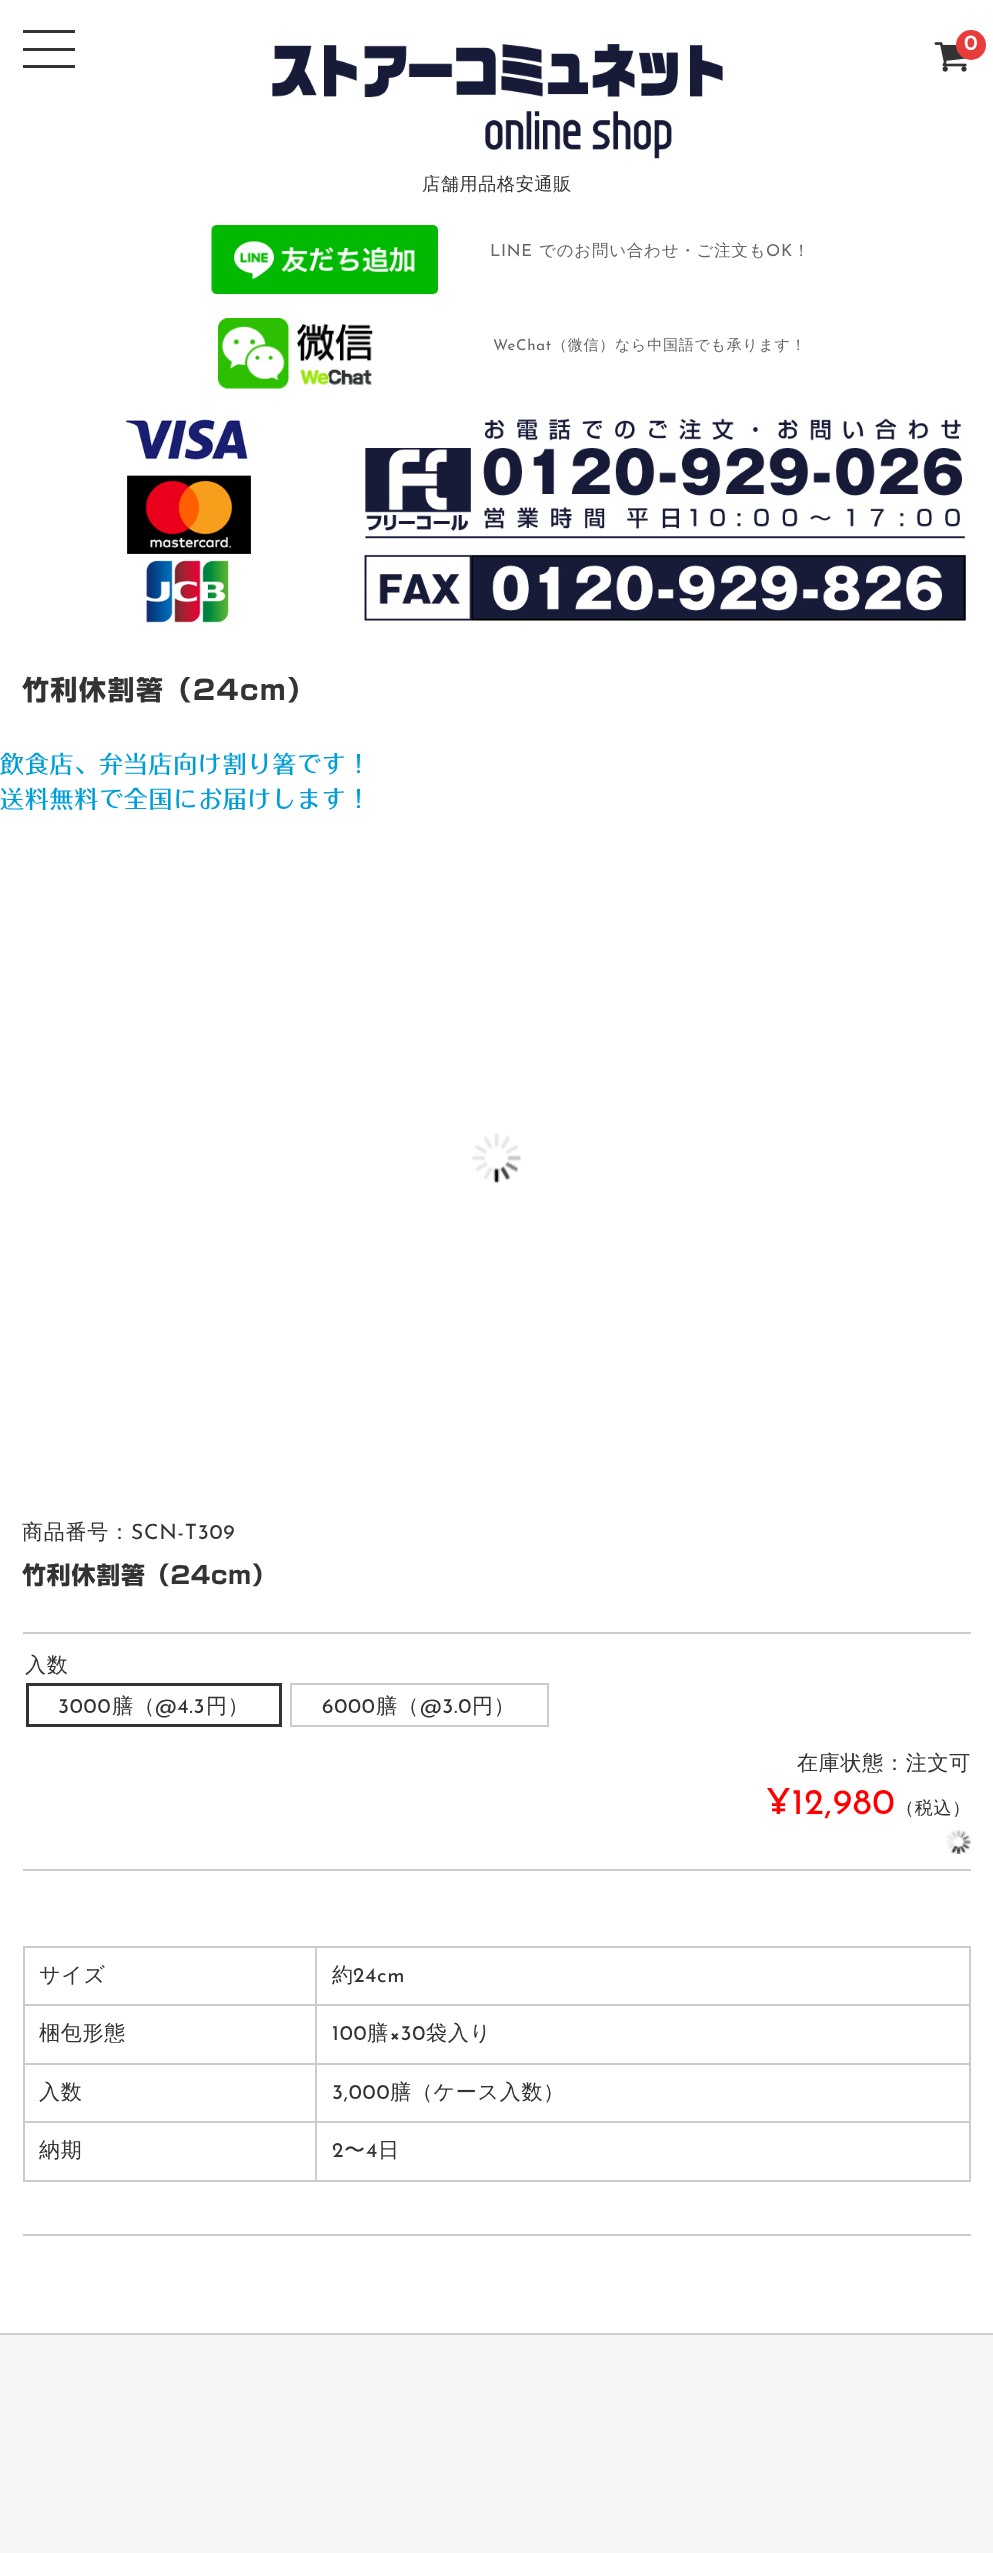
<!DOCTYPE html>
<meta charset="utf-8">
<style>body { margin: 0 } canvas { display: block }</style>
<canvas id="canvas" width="993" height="2553"></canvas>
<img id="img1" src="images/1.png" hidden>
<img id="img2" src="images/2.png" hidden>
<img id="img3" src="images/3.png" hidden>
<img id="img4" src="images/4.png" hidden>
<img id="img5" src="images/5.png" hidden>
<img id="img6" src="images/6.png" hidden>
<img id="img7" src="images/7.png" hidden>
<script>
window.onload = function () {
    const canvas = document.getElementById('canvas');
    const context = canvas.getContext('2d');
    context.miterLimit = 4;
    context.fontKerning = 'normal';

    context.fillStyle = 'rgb(255, 255, 255)';
    context.fillRect(0, 0, 993, 2553);
    context.fillStyle = 'rgb(51, 51, 51)';
    context.fillRect(23, 30, 52, 3);
    context.fillRect(23, 48, 52, 3);
    context.fillRect(23, 65, 52, 3);
    context.drawImage(document.getElementById('img1'), 934, 42, 33, 30);
    context.fillStyle = 'rgb(232, 60, 60)';
    context.beginPath();
    context.arc(971, 45, 15, 0, 2 * Math.PI);
    context.fill();
    context.drawImage(document.getElementById('img2'), 272, 44, 451, 115);
    context.drawImage(document.getElementById('img3'), 211, 225, 227, 69);
    context.drawImage(document.getElementById('img4'), 217, 318, 156, 71);
    context.drawImage(document.getElementById('img5'), 124, 417, 842, 206);
    context.drawImage(document.getElementById('img6'), 472, 1133, 49, 50);
    context.fillStyle = 'rgb(204, 204, 204)';
    context.fillRect(23, 1632, 948, 2);
    context.fillRect(23, 1869, 948, 2);
    context.strokeStyle = 'rgb(51, 51, 51)';
    context.lineWidth = 3;
    context.strokeRect(27.5, 1684.5, 253, 41);
    context.strokeStyle = 'rgb(204, 204, 204)';
    context.lineWidth = 2;
    context.strokeRect(291, 1684, 257, 42);
    context.drawImage(document.getElementById('img7'), 946, 1830, 25, 24);
    context.fillRect(23, 2234, 948, 2);
    context.fillRect(23, 1946, 948, 2);
    context.fillRect(969, 1946, 2, 235);
    context.fillRect(23, 2180, 948, 2);
    context.fillRect(23, 1946, 2, 235);
    context.fillRect(315, 2004, 656, 2);
    context.fillRect(315, 2063, 656, 2);
    context.fillRect(315, 2121, 656, 2);
    context.fillRect(315, 2121, 2, 60);
    context.fillRect(23, 2121, 294, 2);
    context.fillRect(315, 2063, 2, 60);
    context.fillRect(23, 2063, 294, 2);
    context.fillRect(315, 2004, 2, 60);
    context.fillRect(23, 2004, 294, 2);
    context.fillRect(315, 1946, 2, 60);
    context.fillStyle = 'rgb(246, 246, 246)';
    context.fillRect(0, 2335, 993, 218);
    context.fillStyle = 'rgb(204, 204, 204)';
    context.fillRect(0, 2333, 993, 2);
    context.letterSpacing = '0.75px';
    context.font = 'bold 21px Josefin Sans';
    context.fillStyle = 'rgb(255, 255, 255)';
    context.fillText('0', 964, 50);
    context.font = '500 18px WenQuanYi Zen Hei';
    context.fillStyle = 'rgb(51, 51, 51)';
    context.fillText('店舗用品格安通販', 422, 190);
    context.font = '100 16.5px Josefin Sans';
    context.fillStyle = 'rgb(102, 102, 102)';
    context.fillText('LINE', 490, 256);
    context.font = '500 16.5px WenQuanYi Zen Hei';
    context.fillText('でのお問い合わせ・ご注文も', 539, 256);
    context.font = '100 16.5px Josefin Sans';
    context.fillText('OK', 766, 256);
    context.font = '500 16.5px WenQuanYi Zen Hei';
    context.fillText('！', 793, 256);
    context.font = '100 15px Josefin Sans';
    context.fillText('WeChat', 493, 350);
    context.font = '500 15px WenQuanYi Zen Hei';
    context.fillText('（微信）なら中国語でも承ります！', 552, 350);
    context.letterSpacing = '1.5px';
    context.font = 'bold 27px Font';
    context.fillStyle = 'rgb(51, 51, 51)';
    context.fillText('竹利休割箸（24cm）', 22, 700);
    context.letterSpacing = '0.75px';
    context.font = '500 24px Font';
    context.fillStyle = 'rgb(0, 158, 217)';
    context.fillText('飲食店、弁当店向け割り箸です！', 0, 773);
    context.fillText('送料無料で全国にお届けします！', 0, 808);
    context.font = '500 21px WenQuanYi Zen Hei';
    context.fillStyle = 'rgb(51, 51, 51)';
    context.fillText('商品番号：', 22, 1539);
    context.font = '100 21px Josefin Sans';
    context.fillText('SCN-T309', 131, 1539);
    context.font = 'bold 24px Font';
    context.fillText('竹利休割箸（24cm）', 22, 1584);
    context.font = '500 21px WenQuanYi Zen Hei';
    context.fillText('入数', 25, 1672);
    context.font = '100 21px Josefin Sans';
    context.fillText('3000', 58, 1713);
    context.font = '500 21px WenQuanYi Zen Hei';
    context.fillText('膳（', 112, 1713);
    context.font = '100 21px Josefin Sans';
    context.fillText('@4.3', 155, 1713);
    context.font = '500 21px WenQuanYi Zen Hei';
    context.fillText('円）', 206, 1713);
    context.font = '100 21px Josefin Sans';
    context.fillText('6000', 322, 1713);
    context.font = '500 21px WenQuanYi Zen Hei';
    context.fillText('膳（', 376, 1713);
    context.font = '100 21px Josefin Sans';
    context.fillText('@3.0', 420, 1713);
    context.font = '500 21px WenQuanYi Zen Hei';
    context.fillText('円）', 472, 1713);
    context.fillText('在庫状態：注文可', 797, 1770);
    context.font = '100 36px Josefin Sans';
    context.fillStyle = 'rgb(255, 0, 0)';
    context.fillText('¥12,980', 766, 1814);
    context.font = '500 18px WenQuanYi Zen Hei';
    context.fillStyle = 'rgb(51, 51, 51)';
    context.fillText('（税込）', 896, 1814);
    context.font = '500 21px WenQuanYi Zen Hei';
    context.fillText('サイズ', 39, 1982);
    context.fillText('約', 332, 1982);
    context.font = '100 21px Josefin Sans';
    context.fillText('24cm', 353, 1982);
    context.font = '500 21px WenQuanYi Zen Hei';
    context.fillText('梱包形態', 39, 2040);
    context.font = '100 21px Josefin Sans';
    context.fillText('100', 332, 2040);
    context.font = '500 21px WenQuanYi Zen Hei';
    context.fillText('膳', 367, 2040);
    context.font = '100 21px Josefin Sans';
    context.fillText('×30', 389, 2040);
    context.font = '500 21px WenQuanYi Zen Hei';
    context.fillText('袋入り', 426, 2040);
    context.fillText('入数', 39, 2099);
    context.font = '100 21px Josefin Sans';
    context.fillText('3,000', 332, 2099);
    context.font = '500 21px WenQuanYi Zen Hei';
    context.fillText('膳（ケース入数）', 390, 2099);
    context.fillText('納期', 39, 2157);
    context.font = '100 21px Josefin Sans';
    context.fillText('2', 332, 2157);
    context.font = '500 21px WenQuanYi Zen Hei';
    context.fillText('〜', 344, 2157);
    context.font = '100 21px Josefin Sans';
    context.fillText('4', 366, 2157);
    context.font = '500 21px WenQuanYi Zen Hei';
    context.fillText('日', 378, 2157);
};
</script>
